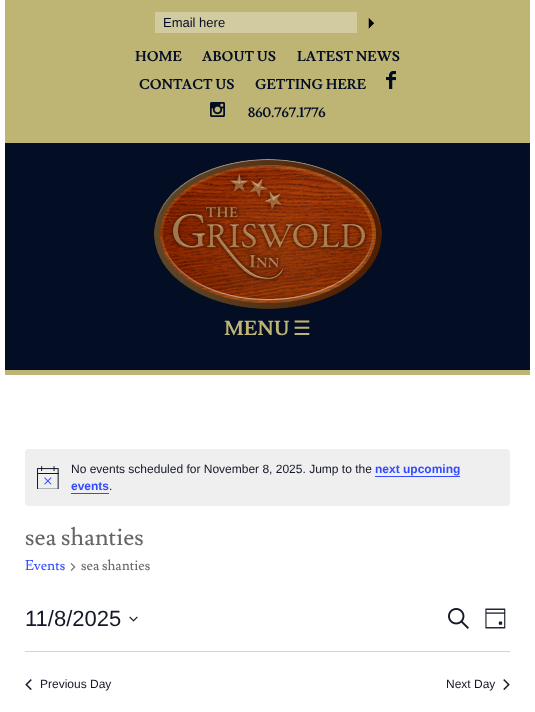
<!DOCTYPE html>
<meta charset="utf-8">
<style>body { margin: 0 } canvas { display: block }</style>
<canvas id="canvas" width="535" height="712"></canvas>
<img id="img1" src="images/1.png" hidden>
<img id="img2" src="images/2.png" hidden>
<img id="img3" src="images/3.png" hidden>
<img id="img4" src="images/4.png" hidden>
<img id="img5" src="images/5.png" hidden>
<img id="img6" src="images/6.png" hidden>
<img id="img7" src="images/7.png" hidden>
<img id="img8" src="images/8.png" hidden>
<img id="img9" src="images/9.png" hidden>
<img id="img10" src="images/10.png" hidden>
<img id="img11" src="images/11.png" hidden>
<script>
window.onload = function () {
    const canvas = document.getElementById('canvas');
    const context = canvas.getContext('2d');
    context.miterLimit = 4;
    context.fontKerning = 'normal';

    context.fillStyle = 'rgb(255, 255, 255)';
    context.fillRect(0, 0, 535, 712);
    context.fillStyle = 'rgb(190, 181, 117)';
    context.fillRect(5, 0, 525, 143);
    context.fillStyle = 'rgb(210, 203, 159)';
    context.fillRect(155, 12, 202, 21);
    context.drawImage(document.getElementById('img1'), 368, 17, 6, 12);
    context.drawImage(document.getElementById('img2'), 386, 71, 10, 18);
    context.drawImage(document.getElementById('img3'), 210, 102, 15, 15);
    context.fillStyle = 'rgb(3, 13, 36)';
    context.fillRect(5, 143, 525, 227);
    context.fillStyle = 'rgb(190, 181, 117)';
    context.fillRect(5, 370, 525, 5);
    context.drawImage(document.getElementById('img4'), 154, 159, 228, 150);
    context.fillStyle = 'rgb(239, 239, 240)';
    context.beginPath();
    context.roundRect(25, 449, 485, 57, 4);
    context.fill();
    context.drawImage(document.getElementById('img5'), 37, 466, 22, 23);
    context.fillStyle = 'rgb(51, 74, 255)';
    context.fillRect(375, 476, 85, 1);
    context.fillRect(71, 493, 38, 1);
    context.drawImage(document.getElementById('img6'), 70, 563, 6, 8);
    context.drawImage(document.getElementById('img7'), 129, 616, 9, 6);
    context.drawImage(document.getElementById('img8'), 448, 608, 21, 21);
    context.drawImage(document.getElementById('img9'), 485, 608, 21, 21);
    context.fillStyle = 'rgb(213, 213, 213)';
    context.fillRect(25, 651, 485, 1);
    context.drawImage(document.getElementById('img10'), 25, 679, 7, 11);
    context.drawImage(document.getElementById('img11'), 503, 679, 7, 11);
    context.font = '13px Liberation Sans';
    context.fillStyle = 'rgb(3, 13, 36)';
    context.fillText('Email here', 163, 27);
    context.font = 'bold 14px Lusitana';
    context.fillText('HOME', 135, 61);
    context.fillText('ABOUT US', 202, 61);
    context.fillText('LATEST NEWS', 297, 61);
    context.fillText('CONTACT US', 139, 89);
    context.fillText('GETTING HERE', 255, 89);
    context.fillText('860.767.1776', 248, 117);
    context.font = 'bold 20px Lusitana';
    context.fillStyle = 'rgb(190, 180, 118)';
    context.fillText('MENU', 224, 335);
    context.font = '20px DejaVu Sans';
    context.fillText('☰', 293, 335);
    context.font = '12px Liberation Sans';
    context.fillStyle = 'rgb(20, 24, 39)';
    context.fillText('No events scheduled for November 8, 2025. Jump to the', 71, 473);
    context.font = 'bold 12px Liberation Sans';
    context.fillStyle = 'rgb(51, 74, 255)';
    context.fillText('next upcoming', 375, 473);
    context.fillText('events', 71, 490);
    context.font = '12px Liberation Sans';
    context.fillStyle = 'rgb(20, 24, 39)';
    context.fillText('.', 109, 490);
    context.font = '24px Lusitana';
    context.fillStyle = 'rgb(102, 102, 102)';
    context.fillText('sea shanties', 25, 545);
    context.font = '14px Lusitana';
    context.fillStyle = 'rgb(51, 74, 255)';
    context.fillText('Events', 25, 570);
    context.fillStyle = 'rgb(102, 102, 102)';
    context.fillText('sea shanties', 81, 570);
    context.font = '22px Liberation Sans';
    context.fillStyle = 'rgb(20, 24, 39)';
    context.fillText('11/8/2025', 25, 626);
    context.font = '12px Liberation Sans';
    context.fillText('Previous Day', 40, 688);
    context.fillText('Next Day', 446, 688);
};
</script>
